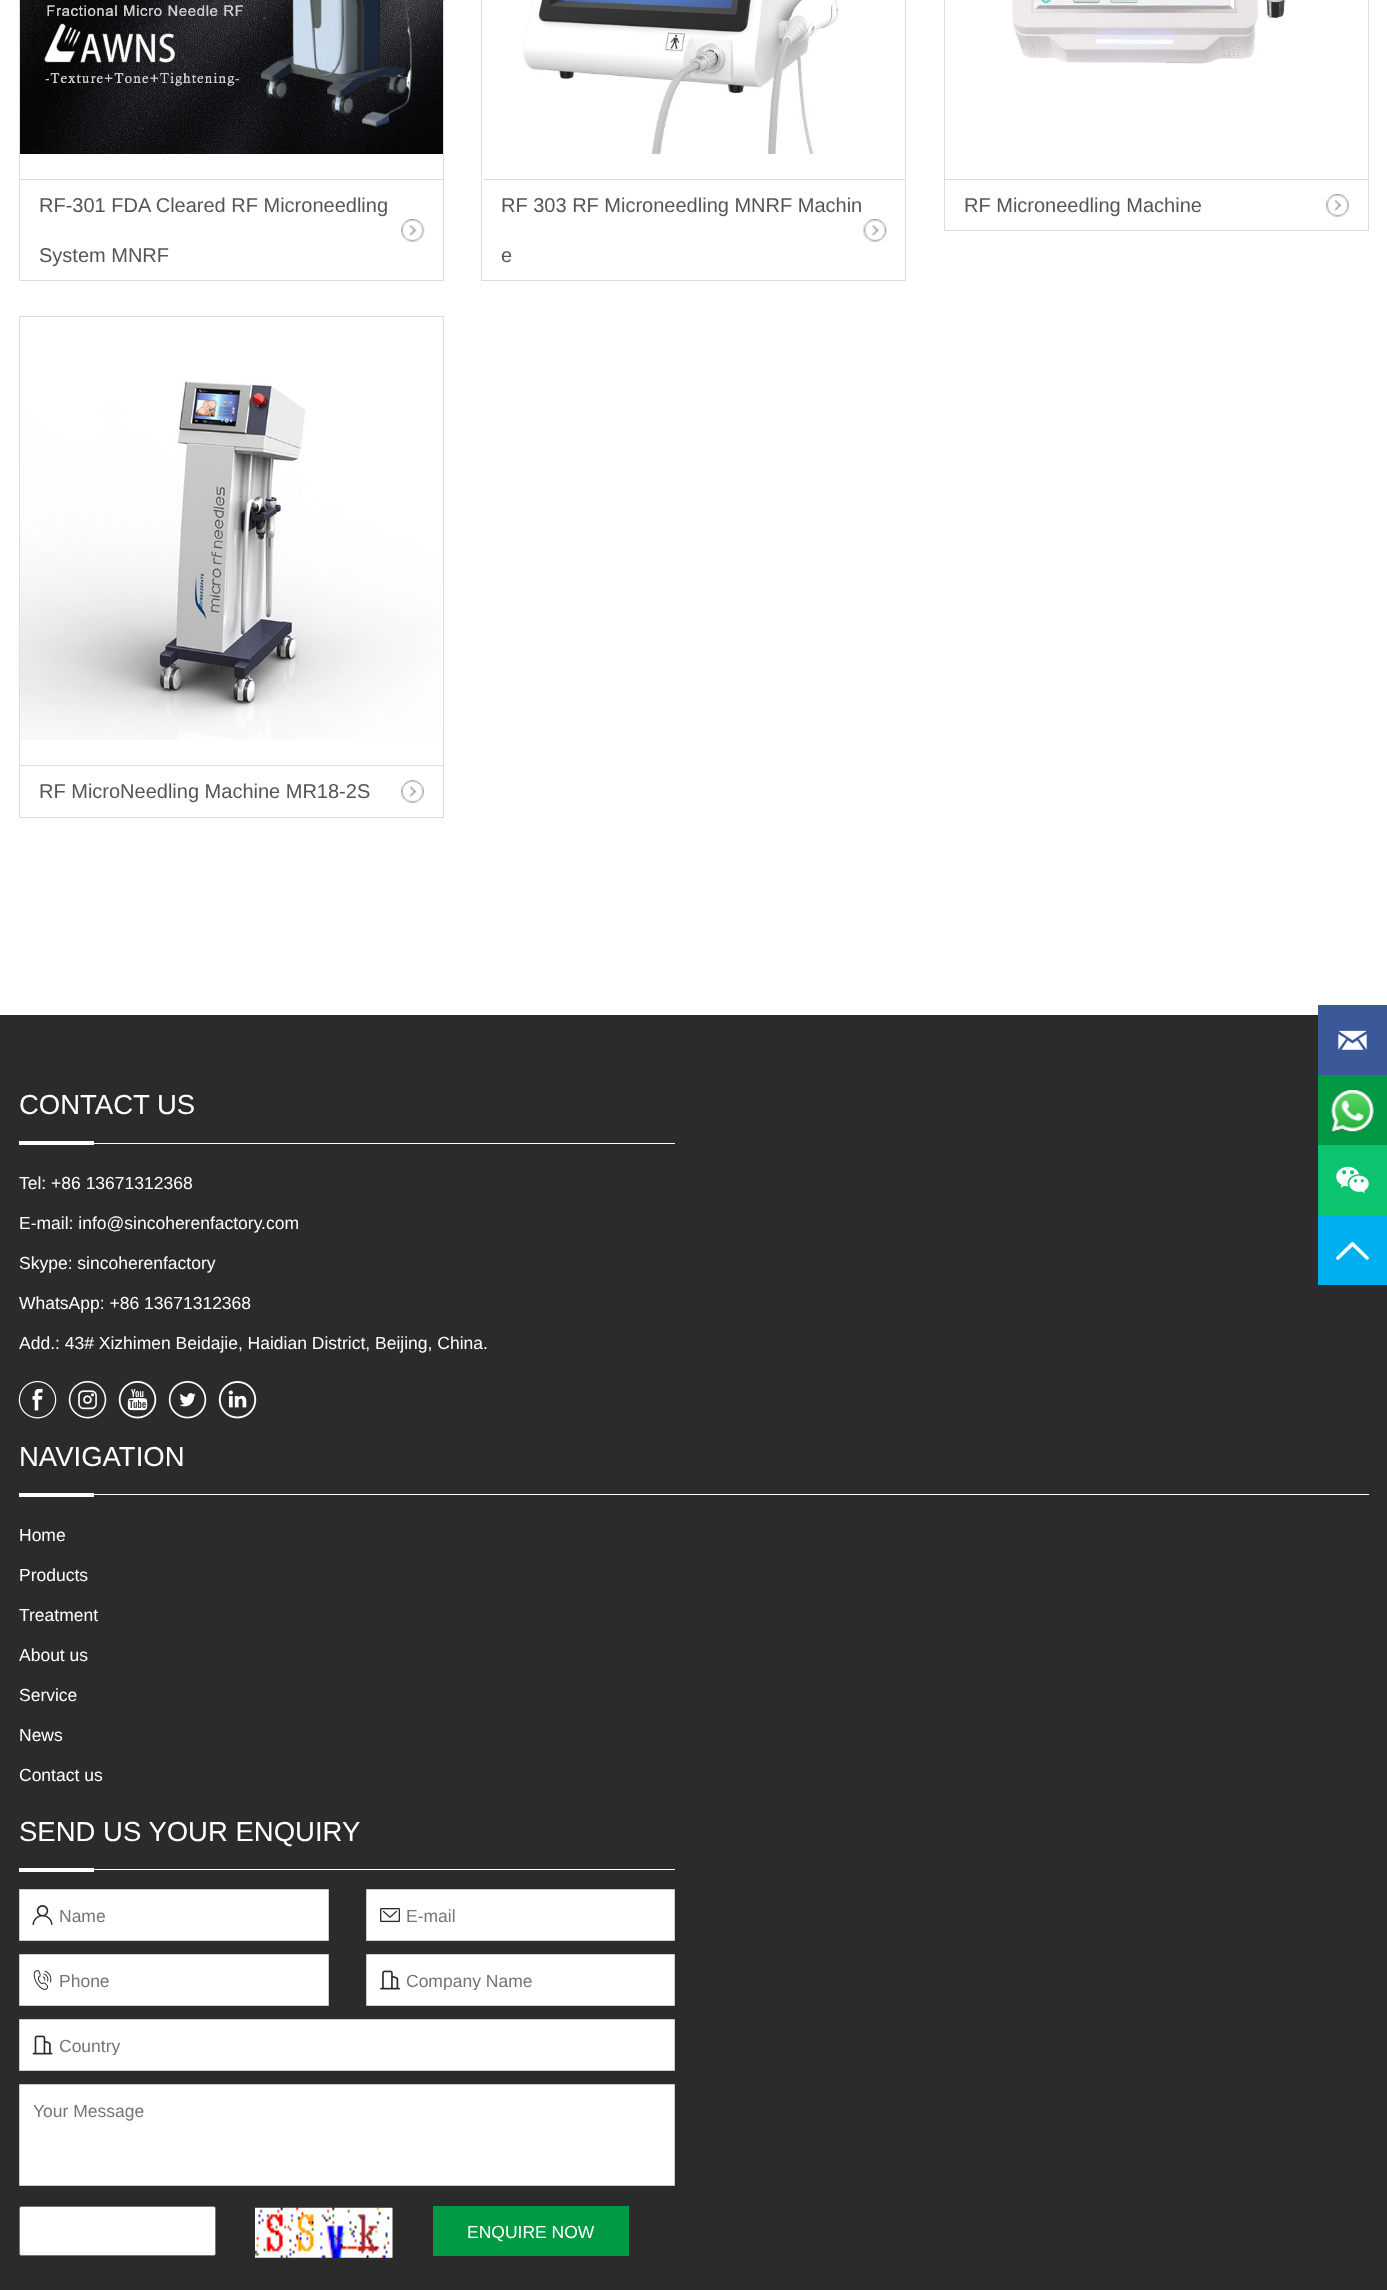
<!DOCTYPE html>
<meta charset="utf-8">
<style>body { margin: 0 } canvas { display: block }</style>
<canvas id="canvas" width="1387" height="2290"></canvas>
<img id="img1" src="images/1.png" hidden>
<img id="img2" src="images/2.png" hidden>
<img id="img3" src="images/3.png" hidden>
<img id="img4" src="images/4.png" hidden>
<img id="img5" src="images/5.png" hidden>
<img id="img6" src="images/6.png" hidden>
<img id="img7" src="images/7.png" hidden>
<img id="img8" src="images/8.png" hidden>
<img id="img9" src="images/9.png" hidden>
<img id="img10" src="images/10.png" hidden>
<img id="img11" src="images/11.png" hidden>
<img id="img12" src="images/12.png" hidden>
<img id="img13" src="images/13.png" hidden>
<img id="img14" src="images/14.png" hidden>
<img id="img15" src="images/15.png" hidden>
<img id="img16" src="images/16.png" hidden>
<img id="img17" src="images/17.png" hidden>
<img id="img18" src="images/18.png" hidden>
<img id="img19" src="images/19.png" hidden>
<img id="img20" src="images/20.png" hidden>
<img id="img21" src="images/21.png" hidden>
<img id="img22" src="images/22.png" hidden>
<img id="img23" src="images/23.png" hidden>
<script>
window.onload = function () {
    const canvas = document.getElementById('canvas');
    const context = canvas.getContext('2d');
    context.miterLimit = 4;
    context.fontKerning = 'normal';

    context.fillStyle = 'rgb(255, 255, 255)';
    context.fillRect(0, 0, 1387, 2290);
    context.strokeStyle = 'rgb(221, 221, 221)';
    context.strokeRect(19.5, -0.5, 424, 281);
    context.drawImage(document.getElementById('img1'), 20, 0, 423, 154);
    context.fillStyle = 'rgb(221, 221, 221)';
    context.fillRect(20, 179, 423, 1);
    context.drawImage(document.getElementById('img2'), 401, 219, 24, 23);
    context.strokeRect(481.5, -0.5, 424, 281);
    context.drawImage(document.getElementById('img3'), 523, 0, 317, 154);
    context.fillRect(483, 179, 422, 1);
    context.drawImage(document.getElementById('img4'), 863, 219, 24, 23);
    context.strokeRect(944.5, -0.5, 424, 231);
    context.drawImage(document.getElementById('img5'), 1012, 0, 273, 64);
    context.fillRect(945, 179, 423, 1);
    context.drawImage(document.getElementById('img6'), 1326, 194, 23, 23);
    context.strokeRect(19.5, 316.5, 424, 501);
    context.drawImage(document.getElementById('img7'), 20, 381, 421, 359);
    context.fillRect(20, 765, 423, 1);
    context.drawImage(document.getElementById('img8'), 401, 780, 23, 23);
    context.fillStyle = 'rgb(43, 43, 43)';
    context.fillRect(0, 1015, 1387, 1275);
    context.fillStyle = 'rgb(255, 255, 255)';
    context.fillRect(94, 1143, 581, 1);
    context.fillRect(19, 1141, 75, 4);
    context.drawImage(document.getElementById('img9'), 18, 1381, 39, 38);
    context.drawImage(document.getElementById('img10'), 68, 1381, 39, 38);
    context.drawImage(document.getElementById('img11'), 118, 1381, 39, 38);
    context.drawImage(document.getElementById('img12'), 168, 1381, 39, 38);
    context.drawImage(document.getElementById('img13'), 218, 1381, 39, 38);
    context.fillRect(94, 1494, 1275, 1);
    context.fillRect(19, 1493, 75, 4);
    context.fillRect(94, 1869, 581, 1);
    context.fillRect(19, 1868, 75, 4);
    context.beginPath();
    context.rect(19.5, 1889.5, 309, 51);
    context.fill();
    context.strokeStyle = 'rgb(204, 204, 204)';
    context.stroke();
    context.drawImage(document.getElementById('img14'), 32, 1905, 21, 20);
    context.beginPath();
    context.rect(366.5, 1889.5, 308, 51);
    context.fill();
    context.stroke();
    context.drawImage(document.getElementById('img15'), 380, 1908, 20, 15);
    context.beginPath();
    context.rect(19.5, 1954.5, 309, 51);
    context.fill();
    context.stroke();
    context.drawImage(document.getElementById('img16'), 33, 1970, 19, 20);
    context.beginPath();
    context.rect(366.5, 1954.5, 308, 51);
    context.fill();
    context.stroke();
    context.drawImage(document.getElementById('img17'), 380, 1970, 20, 20);
    context.beginPath();
    context.rect(19.5, 2019.5, 655, 51);
    context.fill();
    context.stroke();
    context.drawImage(document.getElementById('img18'), 32, 2035, 21, 20);
    context.beginPath();
    context.rect(19.5, 2084.5, 655, 101);
    context.fill();
    context.stroke();
    context.beginPath();
    context.roundRect(19.5, 2206.5, 196, 49, 2);
    context.fill();
    context.strokeStyle = 'rgb(118, 118, 118)';
    context.stroke();
    context.drawImage(document.getElementById('img19'), 255, 2207, 138, 51);
    context.fillStyle = 'rgb(0, 153, 68)';
    context.fillRect(433, 2206, 196, 50);
    context.fillStyle = 'rgb(59, 89, 152)';
    context.fillRect(1318, 1005, 69, 70);
    context.drawImage(document.getElementById('img20'), 1338, 1030, 29, 20);
    context.fillStyle = 'rgb(1, 153, 68)';
    context.fillRect(1318, 1075, 69, 70);
    context.drawImage(document.getElementById('img21'), 1331, 1088, 44, 45);
    context.fillStyle = 'rgb(12, 195, 111)';
    context.fillRect(1318, 1145, 69, 70);
    context.drawImage(document.getElementById('img22'), 1336, 1166, 33, 27);
    context.fillStyle = 'rgb(0, 175, 240)';
    context.fillRect(1318, 1215, 69, 70);
    context.drawImage(document.getElementById('img23'), 1336, 1242, 33, 18);
    context.font = '20px Liberation Sans';
    context.fillStyle = 'rgb(85, 85, 85)';
    context.fillText('RF-301 FDA Cleared RF Microneedling', 39, 212);
    context.fillText('System MNRF', 39, 262);
    context.fillText('RF 303 RF Microneedling MNRF Machin', 501, 212);
    context.fillText('e', 501, 262);
    context.fillText('RF Microneedling Machine', 964, 212);
    context.fillText('RF MicroNeedling Machine MR18-2S', 39, 798);
    context.font = '27.5px Liberation Sans';
    context.fillStyle = 'rgb(255, 255, 255)';
    context.fillText('CONTACT US', 19, 1114);
    context.font = '17.5px Liberation Sans';
    context.fillText('Tel: +86 13671312368', 19, 1189);
    context.fillText('E-mail: info@sincoherenfactory.com', 19, 1229);
    context.fillText('Skype: sincoherenfactory', 19, 1269);
    context.fillText('WhatsApp: +86 13671312368', 19, 1309);
    context.fillText('Add.: 43# Xizhimen Beidajie, Haidian District, Beijing, China.', 19, 1349);
    context.font = '27.5px Liberation Sans';
    context.fillText('NAVIGATION', 19, 1466);
    context.font = '17.5px Liberation Sans';
    context.fillText('Home', 19, 1541);
    context.fillText('Products', 19, 1581);
    context.fillText('Treatment', 19, 1621);
    context.fillText('About us', 19, 1661);
    context.fillText('Service', 19, 1701);
    context.fillText('News', 19, 1741);
    context.fillText('Contact us', 19, 1781);
    context.font = '27.5px Liberation Sans';
    context.fillText('SEND US YOUR ENQUIRY', 19, 1841);
    context.font = '17.5px Liberation Sans';
    context.fillStyle = 'rgb(117, 117, 117)';
    context.fillText('Name', 59, 1922);
    context.fillText('E-mail', 406, 1922);
    context.fillText('Phone', 59, 1987);
    context.save();
    context.beginPath();
    context.rect(406, 1970, 227, 20);
    context.clip();
    context.fillText('Company Name', 406, 1987);
    context.restore();
    context.save();
    context.beginPath();
    context.rect(59, 2035, 226, 20);
    context.clip();
    context.fillText('Country', 59, 2052);
    context.restore();
    context.fillText('Your Message', 33, 2117);
    context.fillStyle = 'rgb(255, 255, 255)';
    context.fillText('ENQUIRE NOW', 467, 2238);
};
</script>
